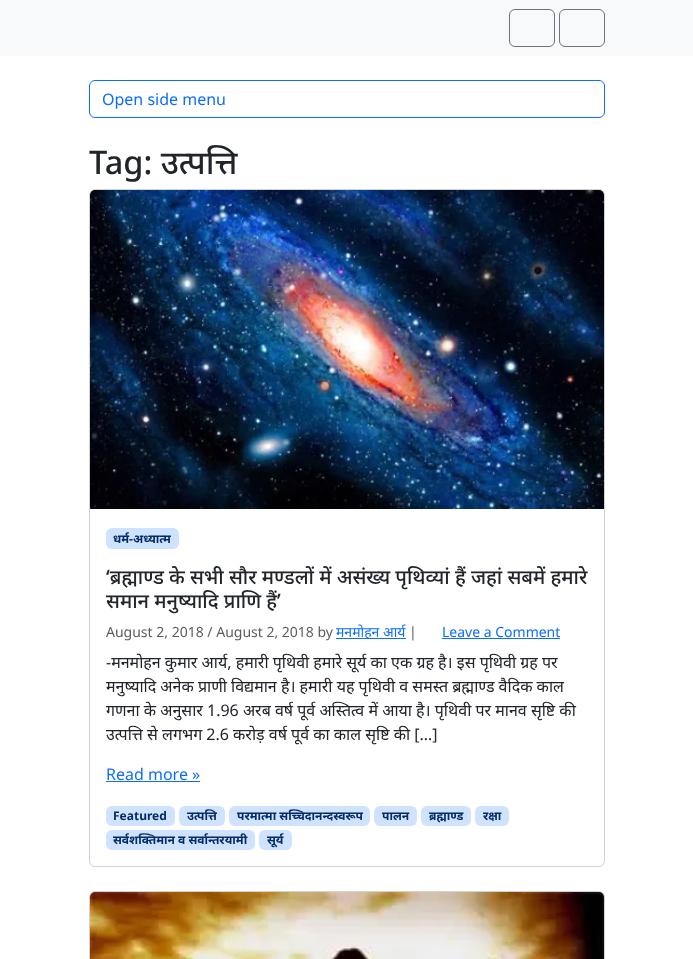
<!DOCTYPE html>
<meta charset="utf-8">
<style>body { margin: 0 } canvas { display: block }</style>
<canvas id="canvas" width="693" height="959"></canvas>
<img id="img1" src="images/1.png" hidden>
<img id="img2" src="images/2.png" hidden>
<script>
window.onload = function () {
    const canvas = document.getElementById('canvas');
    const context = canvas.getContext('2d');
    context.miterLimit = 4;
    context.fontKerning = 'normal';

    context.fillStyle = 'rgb(255, 255, 255)';
    context.fillRect(0, 0, 693, 959);
    context.fillStyle = 'rgb(248, 249, 250)';
    context.fillRect(0, 0, 693, 56);
    context.beginPath();
    context.roundRect(509.5, 9.5, 45, 37, 5.5);
    context.strokeStyle = 'rgb(108, 117, 125)';
    context.stroke();
    context.beginPath();
    context.roundRect(559.5, 9.5, 45, 37, 5.5);
    context.stroke();
    context.beginPath();
    context.roundRect(89.5, 80.5, 515, 37, 5.5);
    context.strokeStyle = 'rgb(13, 110, 253)';
    context.stroke();
    context.beginPath();
    context.roundRect(89.5, 189.5, 515, 677, 5.5);
    context.strokeStyle = 'rgb(210, 210, 210)';
    context.stroke();
    context.drawImage(document.getElementById('img1'), 90, 190, 514, 319);
    context.fillStyle = 'rgb(207, 226, 255)';
    context.beginPath();
    context.roundRect(106, 528, 73, 21, 6);
    context.fill();
    context.fillStyle = 'rgb(13, 110, 253)';
    context.fillRect(336, 638, 70, 1);
    context.fillRect(442, 638, 118, 1);
    context.fillRect(106, 781, 94, 1);
    context.fillStyle = 'rgb(207, 226, 255)';
    context.beginPath();
    context.roundRect(106, 806, 69, 20, 6);
    context.fill();
    context.beginPath();
    context.roundRect(179, 806, 46, 20, 6);
    context.fill();
    context.beginPath();
    context.roundRect(229, 806, 141, 20, 6);
    context.fill();
    context.beginPath();
    context.roundRect(374, 806, 43, 20, 6);
    context.fill();
    context.beginPath();
    context.roundRect(421, 806, 50, 20, 6);
    context.fill();
    context.beginPath();
    context.roundRect(475, 806, 34, 20, 6);
    context.fill();
    context.beginPath();
    context.roundRect(106, 830, 149, 20, 6);
    context.fill();
    context.beginPath();
    context.roundRect(259, 830, 33, 20, 6);
    context.fill();
    context.beginPath();
    context.roundRect(89.5, 891.5, 515, 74, 5.5);
    context.stroke();
    context.drawImage(document.getElementById('img2'), 90, 892, 514, 67);
    context.font = '16px Noto Sans';
    context.fillStyle = 'rgb(13, 110, 253)';
    context.fillText('Open side menu', 102, 105);
    context.font = '500 32.5px Noto Sans';
    context.fillStyle = 'rgb(33, 37, 41)';
    context.fillText('Tag: उत्पत्ति', 89, 174);
    context.font = 'bold 12px Noto Sans';
    context.fillStyle = 'rgb(5, 44, 101)';
    context.fillText('धर्म-अध्यात्म', 113, 543);
    context.font = '500 20px Noto Sans';
    context.fillStyle = 'rgb(33, 37, 41)';
    context.fillText('‘ब्रह्माण्ड के सभी सौर मण्डलों में असंख्य पृथिव्यां हैं जहां सबमें हमारे', 106, 584);
    context.fillText('समान मनुष्यादि प्राणि हैं’', 106, 608);
    context.font = '14px Noto Sans';
    context.fillStyle = 'rgb(89, 92, 95)';
    context.fillText('August 2, 2018 / August 2, 2018 by', 106, 637);
    context.fillStyle = 'rgb(13, 110, 253)';
    context.fillText('मनमोहन आर्य', 336, 637);
    context.fillStyle = 'rgb(89, 92, 95)';
    context.fillText('|', 409, 637);
    context.fillStyle = 'rgb(13, 110, 253)';
    context.fillText('Leave a Comment', 442, 637);
    context.font = '16px Noto Sans';
    context.fillStyle = 'rgb(33, 37, 41)';
    context.fillText('-मनमोहन कुमार आर्य, हमारी पृथिवी हमारे सूर्य का एक ग्रह है। इस पृथिवी ग्रह पर', 106, 668);
    context.fillText('मनुष्यादि अनेक प्राणी विद्यमान है। हमारी यह पृथिवी व समस्त ब्रह्माण्ड वैदिक काल', 106, 692);
    context.fillText('गणना के अनुसार 1.96 अरब वर्ष पूर्व अस्तित्व में आया है। पृथिवी पर मानव सृष्टि की', 106, 716);
    context.fillText('उत्पत्ति से लगभग 2.6 करोड़ वर्ष पूर्व का काल सृष्टि की […]', 106, 740);
    context.fillStyle = 'rgb(13, 110, 253)';
    context.fillText('Read more »', 106, 780);
    context.font = 'bold 12px Noto Sans';
    context.fillStyle = 'rgb(5, 44, 101)';
    context.fillText('Featured', 113, 820);
    context.fillText('उत्पत्ति', 187, 820);
    context.fillText('परमात्मा सच्चिदानन्दस्वरूप', 237, 820);
    context.fillText('पालन', 382, 820);
    context.fillText('ब्रह्माण्ड', 429, 820);
    context.fillText('रक्षा', 483, 820);
    context.fillText('सर्वशक्तिमान व सर्वान्तरयामी', 113, 844);
    context.fillText('सूर्य', 267, 844);
};
</script>
